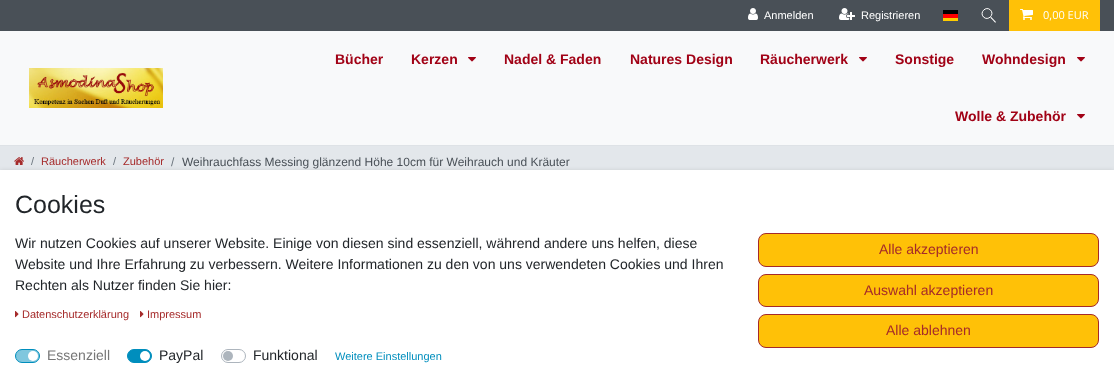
<!DOCTYPE html>
<meta charset="utf-8">
<style>body { margin: 0 } canvas { display: block }</style>
<canvas id="canvas" width="1114" height="387"></canvas>
<img id="img1" src="images/1.png" hidden>
<img id="img2" src="images/2.png" hidden>
<img id="img3" src="images/3.png" hidden>
<img id="img4" src="images/4.png" hidden>
<img id="img5" src="images/5.png" hidden>
<img id="img6" src="images/6.png" hidden>
<img id="img7" src="images/7.png" hidden>
<script>
window.onload = function () {
    const canvas = document.getElementById('canvas');
    const context = canvas.getContext('2d');
    context.miterLimit = 4;
    context.fontKerning = 'normal';

    context.fillStyle = 'rgb(248, 249, 250)';
    context.fillRect(0, 0, 1114, 387);
    context.fillStyle = 'rgb(73, 80, 87)';
    context.fillRect(0, 0, 1114, 31);
    context.drawImage(document.getElementById('img1'), 748, 8, 10, 12);
    context.drawImage(document.getElementById('img2'), 839, 8, 16, 12);
    context.fillStyle = 'rgb(255, 204, 0)';
    context.fillRect(943, 18, 15, 3);
    context.fillStyle = 'rgb(0, 0, 0)';
    context.fillRect(943, 10, 15, 4);
    context.fillStyle = 'rgb(255, 0, 0)';
    context.fillRect(943, 14, 15, 4);
    context.fillStyle = 'rgb(255, 255, 255)';
    context.beginPath();
    context.moveTo(995, 22.5);
    context.bezierCurveTo(994, 21, 985, 12.5, 985, 12);
    context.lineTo(986, 11.5);
    context.lineTo(996, 22);
    context.bezierCurveTo(996, 22.5, 995.5, 22.5, 995, 22.5);
    context.closePath();
    context.fill();
    context.fillStyle = 'rgb(73, 80, 87)';
    context.beginPath();
    context.moveTo(983, 17.5);
    context.bezierCurveTo(978, 12.5, 986, 4.5, 991, 9.5);
    context.bezierCurveTo(996, 14.5, 988, 22.5, 983, 17.5);
    context.closePath();
    context.fill();
    context.beginPath();
    context.moveTo(983.5, 17);
    context.bezierCurveTo(979, 12.5, 986, 5.5, 990.5, 10);
    context.bezierCurveTo(995, 14.5, 988, 21.5, 983.5, 17);
    context.closePath();
    context.strokeStyle = 'rgb(255, 255, 255)';
    context.stroke();
    context.fillStyle = 'rgb(255, 193, 7)';
    context.fillRect(1009, 0, 91, 31);
    context.drawImage(document.getElementById('img3'), 1020, 9, 13, 11);
    context.fillStyle = 'rgb(222, 226, 230)';
    context.fillRect(0, 145, 1114, 1);
    context.drawImage(document.getElementById('img4'), 29, 68, 134, 40);
    context.drawImage(document.getElementById('img5'), 468, 57, 8, 5);
    context.drawImage(document.getElementById('img5'), 859, 57, 8, 5);
    context.drawImage(document.getElementById('img5'), 1077, 57, 8, 5);
    context.drawImage(document.getElementById('img5'), 1077, 114, 8, 5);
    context.fillStyle = 'rgb(227, 231, 235)';
    context.fillRect(0, 146, 1114, 24);
    context.drawImage(document.getElementById('img6'), 14, 157, 10, 8);
    context.fillStyle = 'rgba(0, 0, 0, 0.15)';
    context.filter = 'blur(2.5px)';
    context.beginPath();
    context.rect(0, 171, 1114, 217);
    context.fill();
    context.filter = 'none';
    context.fillStyle = 'rgb(255, 255, 255)';
    context.fillRect(0, 170, 1114, 217);
    context.drawImage(document.getElementById('img7'), 15, 311, 4, 7);
    context.drawImage(document.getElementById('img7'), 140, 311, 4, 7);
    context.fillStyle = 'rgb(128, 199, 222)';
    context.beginPath();
    context.roundRect(15.5, 349.5, 24, 13, 6.5);
    context.fill();
    context.strokeStyle = 'rgb(0, 142, 189)';
    context.stroke();
    context.fillStyle = 'rgb(255, 255, 255)';
    context.beginPath();
    context.arc(33, 356, 5, 0, 2 * Math.PI);
    context.fill();
    context.fillStyle = 'rgb(0, 142, 189)';
    context.beginPath();
    context.roundRect(127.5, 349.5, 24, 13, 6.5);
    context.fill();
    context.stroke();
    context.fillStyle = 'rgb(255, 255, 255)';
    context.beginPath();
    context.arc(145, 356, 5, 0, 2 * Math.PI);
    context.fill();
    context.beginPath();
    context.roundRect(221.5, 349.5, 24, 13, 6.5);
    context.strokeStyle = 'rgb(173, 181, 189)';
    context.stroke();
    context.fillStyle = 'rgb(173, 181, 189)';
    context.beginPath();
    context.arc(228, 356, 5, 0, 2 * Math.PI);
    context.fill();
    context.fillStyle = 'rgb(255, 193, 7)';
    context.beginPath();
    context.roundRect(758.5, 233.5, 340, 33, 7.5);
    context.fill();
    context.strokeStyle = 'rgb(165, 42, 42)';
    context.stroke();
    context.beginPath();
    context.roundRect(758.5, 274.5, 340, 32, 7.5);
    context.fill();
    context.stroke();
    context.beginPath();
    context.roundRect(758.5, 314.5, 340, 33, 7.5);
    context.fill();
    context.stroke();
    context.font = '11px Liberation Sans';
    context.fillStyle = 'rgb(255, 255, 255)';
    context.fillText('Anmelden', 764, 19);
    context.fillText('Registrieren', 861, 19);
    context.font = '11px Open Sans';
    context.fillText('0,00 EUR', 1043, 19);
    context.font = 'bold 14px Liberation Sans';
    context.fillStyle = 'rgb(161, 2, 22)';
    context.fillText('Bücher', 335, 64);
    context.fillText('Kerzen', 411, 64);
    context.fillText('Nadel & Faden', 504, 64);
    context.fillText('Natures Design', 630, 64);
    context.fillText('Räucherwerk', 760, 64);
    context.fillText('Sonstige', 895, 64);
    context.fillText('Wohndesign', 982, 64);
    context.fillText('Wolle & Zubehör', 955, 121);
    context.font = '11px Liberation Sans';
    context.fillStyle = 'rgb(108, 117, 125)';
    context.fillText('/', 31, 165);
    context.fillStyle = 'rgb(165, 42, 42)';
    context.fillText('Räucherwerk', 41, 165);
    context.fillStyle = 'rgb(108, 117, 125)';
    context.fillText('/', 113, 165);
    context.fillStyle = 'rgb(165, 42, 42)';
    context.fillText('Zubehör', 123, 165);
    context.font = '12px Liberation Sans';
    context.fillStyle = 'rgb(108, 117, 125)';
    context.fillText('/', 171, 166);
    context.fillStyle = 'rgb(73, 80, 87)';
    context.fillText('Weihrauchfass Messing glänzend Höhe 10cm für Weihrauch und Kräuter', 182, 166);
    context.font = '25px Liberation Sans';
    context.fillStyle = 'rgb(33, 37, 41)';
    context.fillText('Cookies', 15, 213);
    context.font = '14px Liberation Sans';
    context.fillText('Wir nutzen Cookies auf unserer Website. Einige von diesen sind essenziell, während andere uns helfen, diese', 15, 248);
    context.fillText('Website und Ihre Erfahrung zu verbessern. Weitere Informationen zu den von uns verwendeten Cookies und Ihren', 15, 269);
    context.fillText('Rechten als Nutzer finden Sie hier:', 15, 290);
    context.font = '11px Liberation Sans';
    context.fillStyle = 'rgb(165, 42, 42)';
    context.fillText('Datenschutzerklärung', 22, 318);
    context.fillText('Impressum', 147, 318);
    context.font = '14px Liberation Sans';
    context.fillStyle = 'rgb(118, 118, 118)';
    context.fillText('Essenziell', 47, 360);
    context.fillStyle = 'rgb(33, 37, 41)';
    context.fillText('PayPal', 159, 360);
    context.fillText('Funktional', 253, 360);
    context.font = '11px Liberation Sans';
    context.fillStyle = 'rgb(0, 142, 189)';
    context.fillText('Weitere Einstellungen', 335, 360);
    context.font = '14px Liberation Sans';
    context.fillStyle = 'rgb(165, 42, 42)';
    context.fillText('Alle akzeptieren', 879, 254);
    context.fillText('Auswahl akzeptieren', 864, 295);
    context.fillText('Alle ablehnen', 886, 335);
};
</script>
